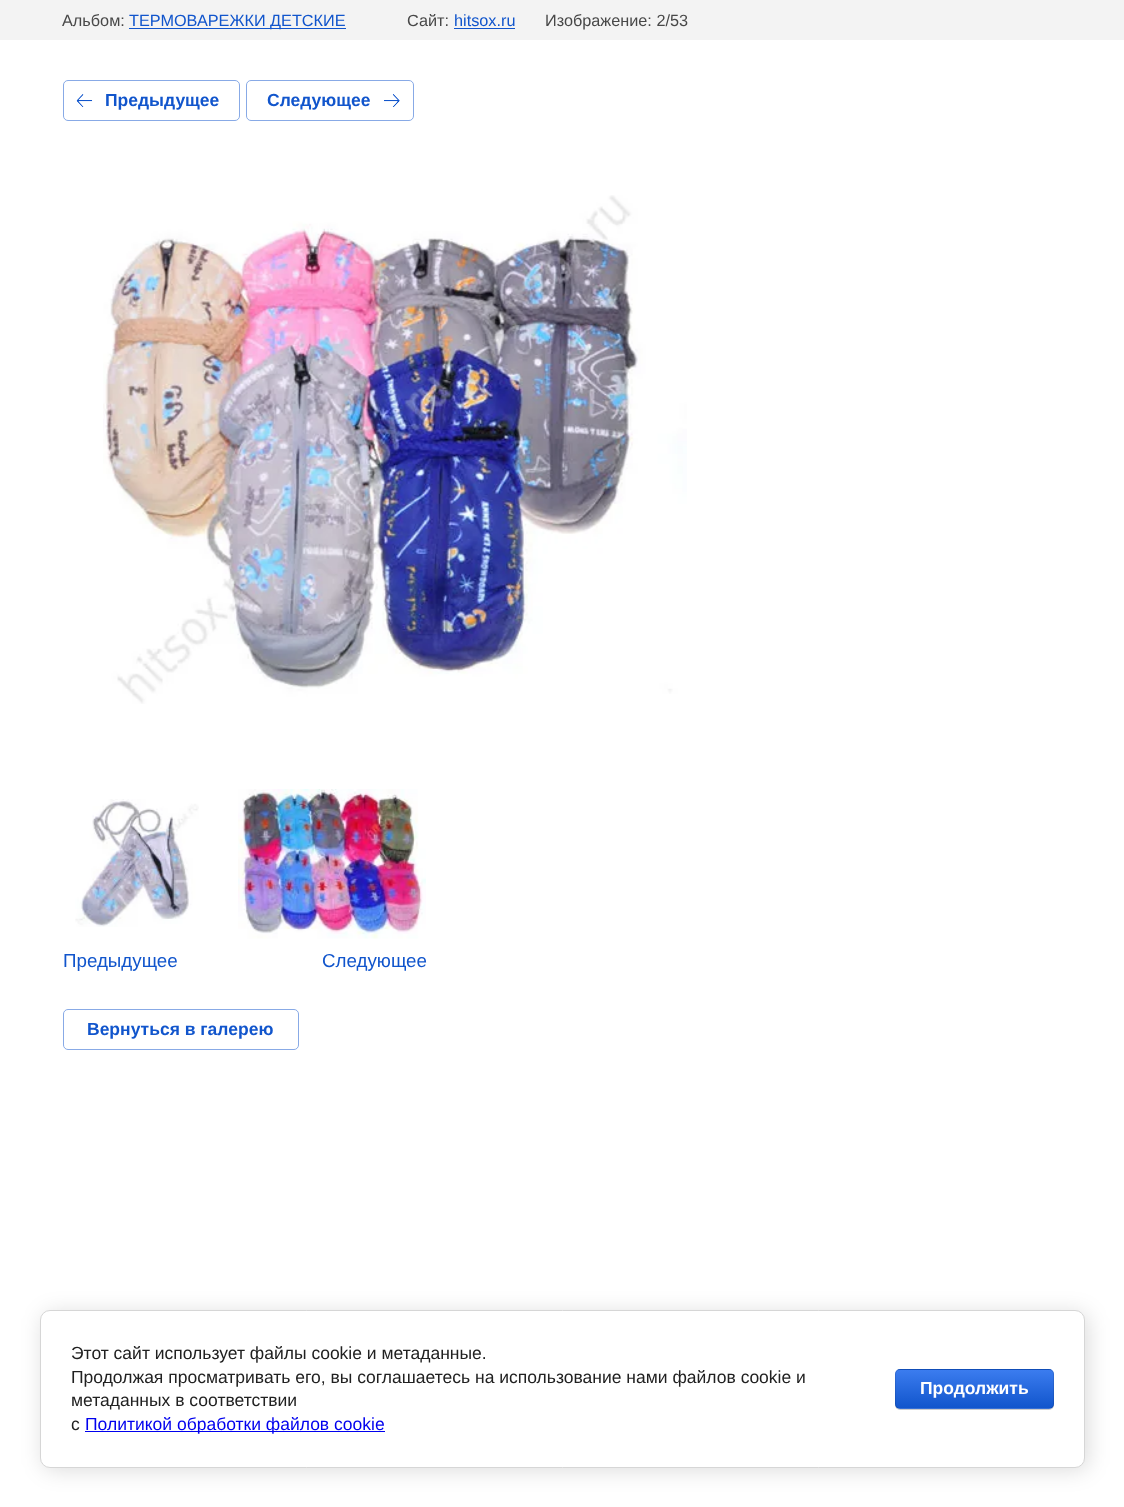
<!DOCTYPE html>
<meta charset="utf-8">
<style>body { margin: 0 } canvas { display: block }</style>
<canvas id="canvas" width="1124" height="1507"></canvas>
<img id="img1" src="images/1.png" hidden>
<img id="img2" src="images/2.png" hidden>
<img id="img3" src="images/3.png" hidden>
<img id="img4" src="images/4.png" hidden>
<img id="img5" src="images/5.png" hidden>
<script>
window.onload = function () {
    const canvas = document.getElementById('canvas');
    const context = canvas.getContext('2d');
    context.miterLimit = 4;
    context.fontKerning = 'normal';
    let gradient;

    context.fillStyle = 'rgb(255, 255, 255)';
    context.fillRect(0, 0, 1124, 1507);
    context.fillStyle = 'rgb(243, 243, 243)';
    context.fillRect(0, 0, 1124, 40);
    context.fillStyle = 'rgb(17, 85, 204)';
    context.fillRect(129, 28, 217, 1);
    context.fillRect(454, 28, 61, 1);
    context.beginPath();
    context.roundRect(63.5, 80.5, 176, 40, 4.5);
    context.strokeStyle = 'rgb(136, 170, 230)';
    context.stroke();
    context.drawImage(document.getElementById('img1'), 76, 94, 17, 13);
    context.beginPath();
    context.roundRect(246.5, 80.5, 167, 40, 4.5);
    context.stroke();
    context.drawImage(document.getElementById('img2'), 384, 94, 16, 13);
    context.drawImage(document.getElementById('img3'), 103, 195, 584, 509);
    context.drawImage(document.getElementById('img4'), 75, 799, 124, 128);
    context.drawImage(document.getElementById('img5'), 238, 789, 188, 150);
    context.beginPath();
    context.roundRect(63.5, 1009.5, 235, 40, 4.5);
    context.stroke();
    context.fillStyle = 'rgba(0, 0, 0, 0.14)';
    context.filter = 'blur(11px)';
    context.beginPath();
    context.roundRect(43, 1313, 1045, 157, 10);
    context.fill();
    context.filter = 'none';
    context.fillStyle = 'rgb(255, 255, 255)';
    context.beginPath();
    context.roundRect(40.5, 1310.5, 1044, 157, 9.5);
    context.fill();
    context.strokeStyle = 'rgb(214, 214, 214)';
    context.stroke();
    context.fillStyle = 'rgb(0, 0, 238)';
    context.fillRect(85, 1431, 300, 1);
    context.fillStyle = 'rgba(0, 0, 0, 0.2)';
    context.filter = 'blur(0.5px)';
    context.beginPath();
    context.roundRect(895, 1370, 159, 40, 5);
    context.fill();
    context.filter = 'none';
    context.save();
    context.beginPath();
    context.roundRect(895, 1369, 159, 40, 5);
    context.clip();
    gradient = context.createLinearGradient(974, 1333, 974, 1370);
    gradient.addColorStop(0, 'rgb(59, 124, 239)');
    gradient.addColorStop(1, 'rgb(17, 85, 204)');
    context.fillStyle = gradient;
    context.fillRect(895, 1369, 159, 1);
    gradient = context.createLinearGradient(974, 1370, 974, 1408);
    gradient.addColorStop(0, 'rgb(59, 124, 239)');
    gradient.addColorStop(1, 'rgb(17, 85, 204)');
    context.fillStyle = gradient;
    context.fillRect(895, 1370, 159, 38);
    gradient = context.createLinearGradient(974, 1408, 974, 1445);
    gradient.addColorStop(0, 'rgb(59, 124, 239)');
    gradient.addColorStop(1, 'rgb(17, 85, 204)');
    context.fillStyle = gradient;
    context.fillRect(895, 1408, 159, 1);
    context.restore();
    context.beginPath();
    context.roundRect(895.5, 1369.5, 158, 39, 4.5);
    context.strokeStyle = 'rgba(0, 0, 0, 0.1)';
    context.stroke();
    context.font = '16.25px Liberation Sans';
    context.fillStyle = 'rgb(72, 72, 72)';
    context.fillText('Альбом:', 62, 26);
    context.fillStyle = 'rgb(17, 85, 204)';
    context.fillText('ТЕРМОВАРЕЖКИ ДЕТСКИЕ', 129, 26);
    context.fillStyle = 'rgb(72, 72, 72)';
    context.fillText('Сайт:', 407, 26);
    context.fillStyle = 'rgb(17, 85, 204)';
    context.fillText('hitsox.ru', 454, 26);
    context.fillStyle = 'rgb(72, 72, 72)';
    context.fillText('Изображение: 2/53', 545, 26);
    context.font = 'bold 17.5px Liberation Sans';
    context.fillStyle = 'rgb(17, 85, 204)';
    context.fillText('Предыдущее', 105, 106);
    context.fillText('Следующее', 267, 106);
    context.font = '18.75px Liberation Sans';
    context.fillText('Предыдущее', 63, 967);
    context.fillText('Следующее', 322, 967);
    context.font = 'bold 17.5px Liberation Sans';
    context.fillText('Вернуться в галерею', 87, 1035);
    context.font = '17.5px Liberation Sans';
    context.fillStyle = 'rgb(33, 33, 33)';
    context.fillText('Этот сайт использует файлы cookie и метаданные.', 71, 1359);
    context.fillText('Продолжая просматривать его, вы соглашаетесь на использование нами файлов cookie и', 71, 1383);
    context.fillText('метаданных в соответствии', 71, 1406);
    context.fillText('с', 71, 1430);
    context.fillStyle = 'rgb(0, 0, 238)';
    context.fillText('Политикой обработки файлов cookie', 85, 1430);
    context.font = 'bold 17.5px Liberation Sans';
    context.fillStyle = 'rgb(255, 255, 255)';
    context.fillText('Продолжить', 920, 1394);
};
</script>
